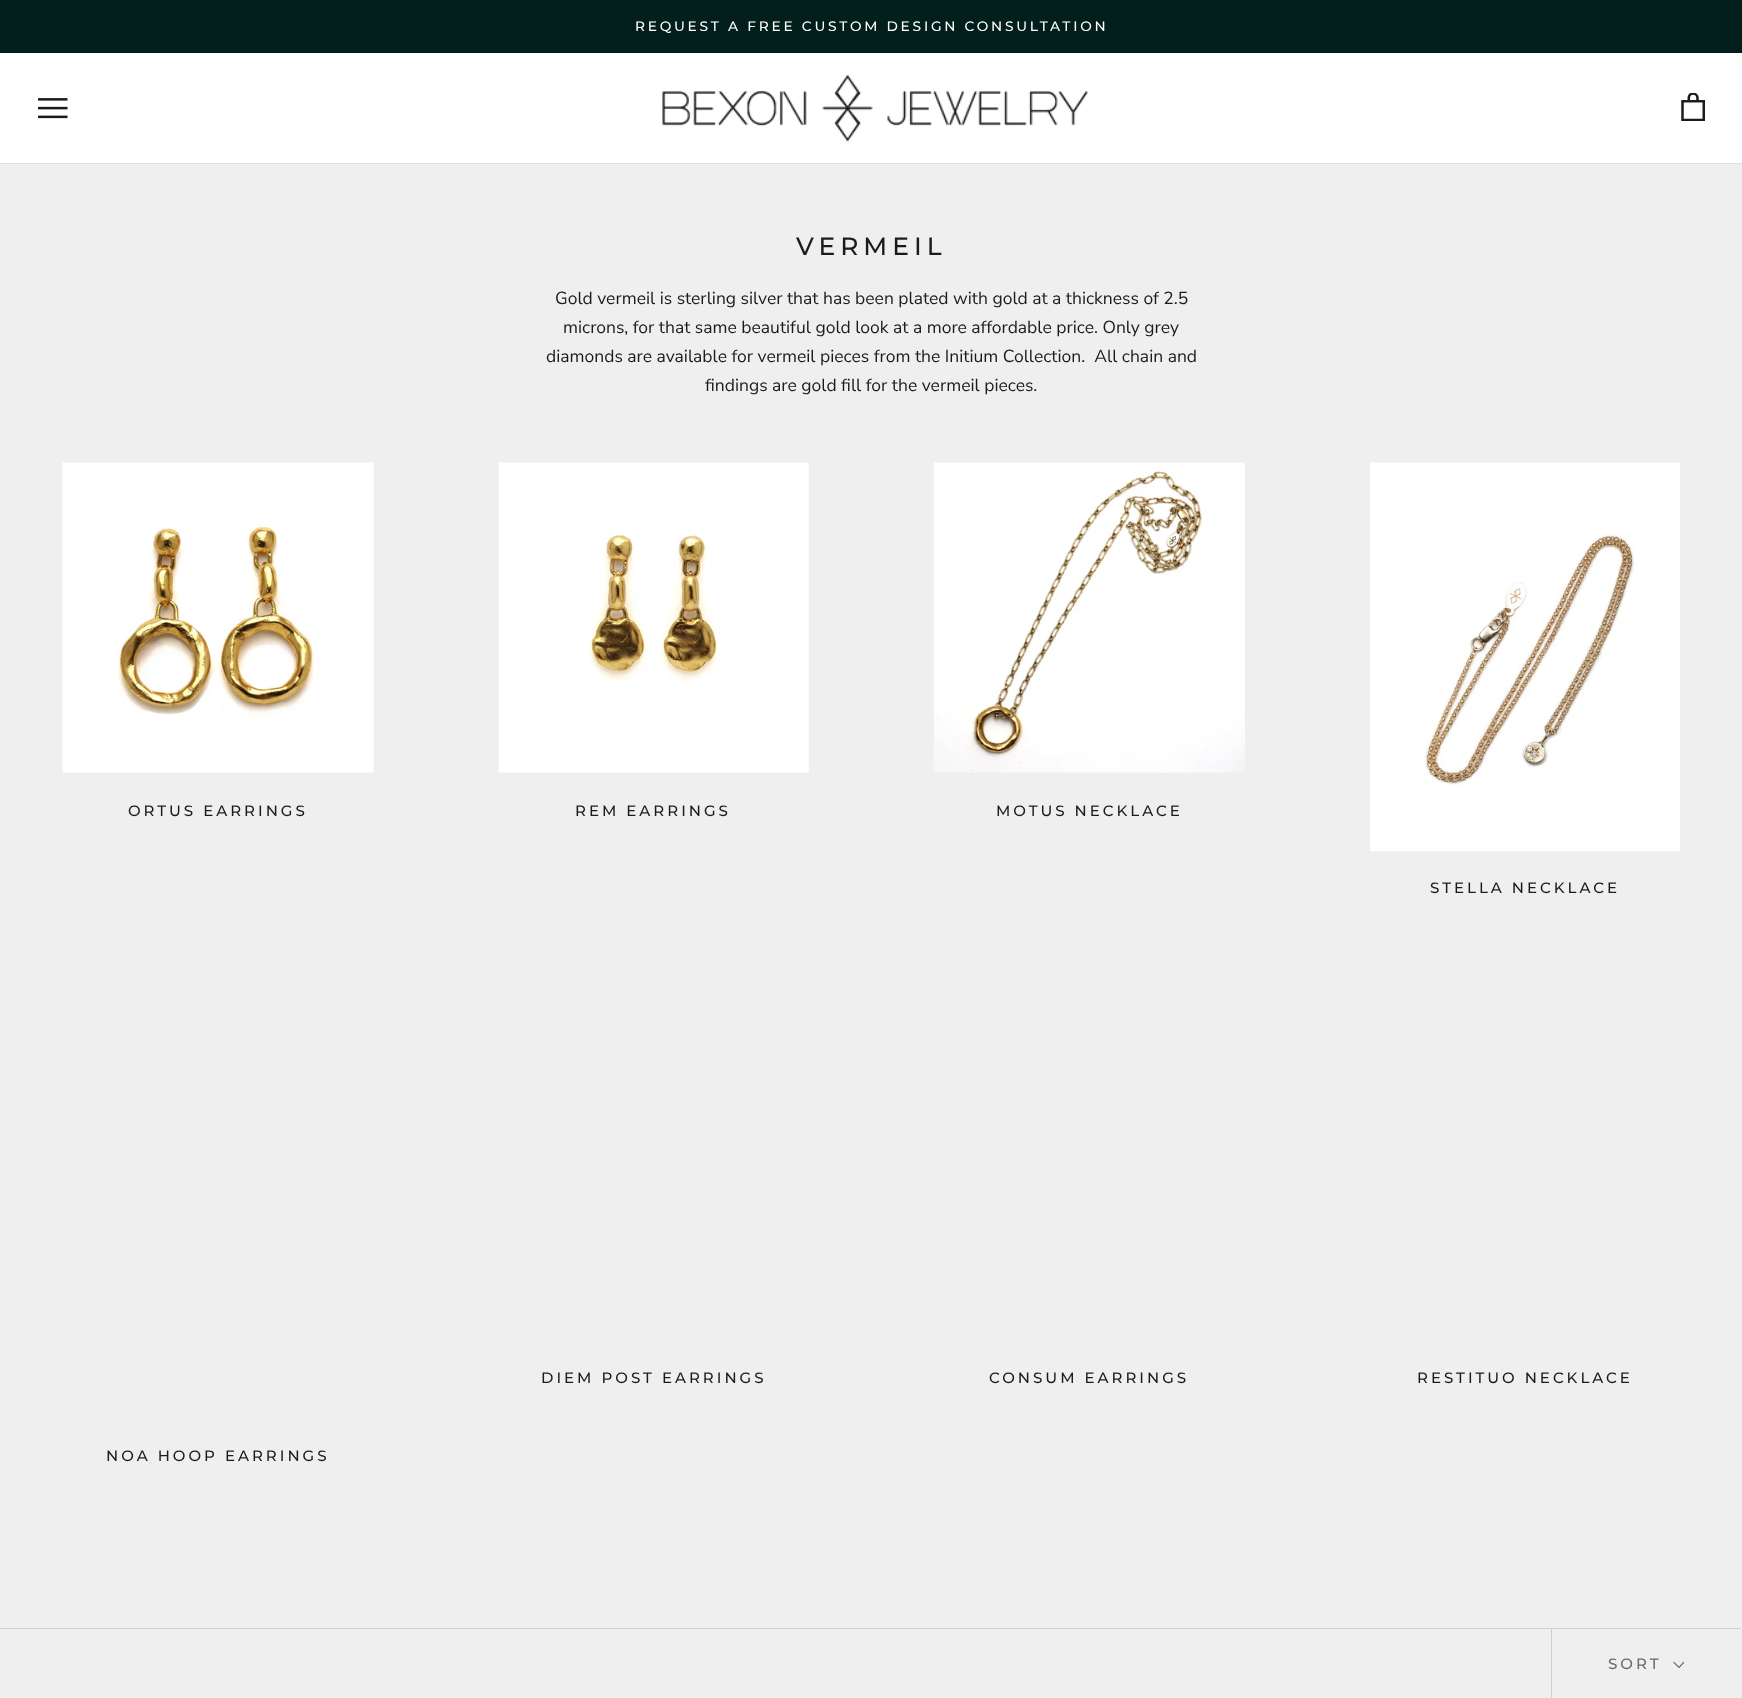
<!DOCTYPE html>
<meta charset="utf-8">
<style>body { margin: 0 } canvas { display: block }</style>
<canvas id="canvas" width="1742" height="1698"></canvas>
<img id="img1" src="images/1.png" hidden>
<img id="img2" src="images/2.png" hidden>
<img id="img3" src="images/3.png" hidden>
<img id="img4" src="images/4.png" hidden>
<img id="img5" src="images/5.png" hidden>
<img id="img6" src="images/6.png" hidden>
<img id="img7" src="images/7.png" hidden>
<script>
window.onload = function () {
    const canvas = document.getElementById('canvas');
    const context = canvas.getContext('2d');
    context.miterLimit = 4;
    context.fontKerning = 'normal';

    context.fillStyle = 'rgb(239, 239, 239)';
    context.fillRect(0, 0, 1742, 1698);
    context.fillStyle = 'rgb(2, 31, 27)';
    context.fillRect(0, 0, 1742, 53);
    context.fillStyle = 'rgb(255, 255, 255)';
    context.fillRect(0, 53, 1742, 110);
    context.fillStyle = 'rgb(221, 221, 221)';
    context.fillRect(0, 163, 1742, 1);
    context.drawImage(document.getElementById('img1'), 38, 98, 30, 21);
    context.drawImage(document.getElementById('img2'), 662, 75, 426, 67);
    context.drawImage(document.getElementById('img3'), 1681, 93, 24, 28);
    context.drawImage(document.getElementById('img4'), 62, 462, 312, 311);
    context.drawImage(document.getElementById('img5'), 498, 462, 311, 311);
    context.drawImage(document.getElementById('img6'), 933, 462, 312, 311);
    context.drawImage(document.getElementById('img7'), 1370, 462, 310, 390);
    context.fillStyle = 'rgb(207, 207, 207)';
    context.beginPath();
    context.moveTo(-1, 1628);
    context.lineTo(-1, 1698);
    context.lineTo(0, 1698);
    context.lineTo(0, 1629);
    context.lineTo(1741, 1629);
    context.lineTo(1741, 1628);
    context.closePath();
    context.fill();
    context.fillRect(1551, 1629, 1, 69);
    context.beginPath();
    context.moveTo(1683.5, 1662.5);
    context.lineTo(1679, 1667.5);
    context.lineTo(1674, 1662.5);
    context.strokeStyle = 'rgb(106, 106, 106)';
    context.lineWidth = 1.2;
    context.lineCap = 'square';
    context.stroke();
    context.letterSpacing = '2.75px';
    context.font = '500 13.75px Montserrat';
    context.fillStyle = 'rgb(255, 255, 255)';
    context.fillText('REQUEST A FREE CUSTOM DESIGN CONSULTATION', 635, 31);
    context.letterSpacing = '5px';
    context.font = '500 25px Montserrat';
    context.fillStyle = 'rgb(28, 27, 27)';
    context.fillText('VERMEIL', 796, 255);
    context.letterSpacing = '0px';
    context.font = '17.5px Nunito Sans';
    context.fillText('Gold vermeil is sterling silver that has been plated with gold at a thickness of 2.5', 555, 304);
    context.fillText('microns, for that same beautiful gold look at a more affordable price. Only grey', 563, 333);
    context.fillText('diamonds are available for vermeil pieces from the Initium Collection.  All chain and', 546, 362);
    context.fillText('findings are gold fill for the vermeil pieces.', 705, 391);
    context.letterSpacing = '3px';
    context.font = '500 15px Montserrat';
    context.fillText('ORTUS EARRINGS', 128, 816);
    context.fillText('REM EARRINGS', 575, 816);
    context.fillText('MOTUS NECKLACE', 996, 816);
    context.fillText('STELLA NECKLACE', 1430, 893);
    context.fillText('DIEM POST EARRINGS', 541, 1383);
    context.fillText('CONSUM EARRINGS', 989, 1383);
    context.fillText('RESTITUO NECKLACE', 1417, 1383);
    context.fillText('NOA HOOP EARRINGS', 106, 1461);
    context.fillStyle = 'rgb(106, 106, 106)';
    context.fillText('SORT', 1608, 1669);
};
</script>
